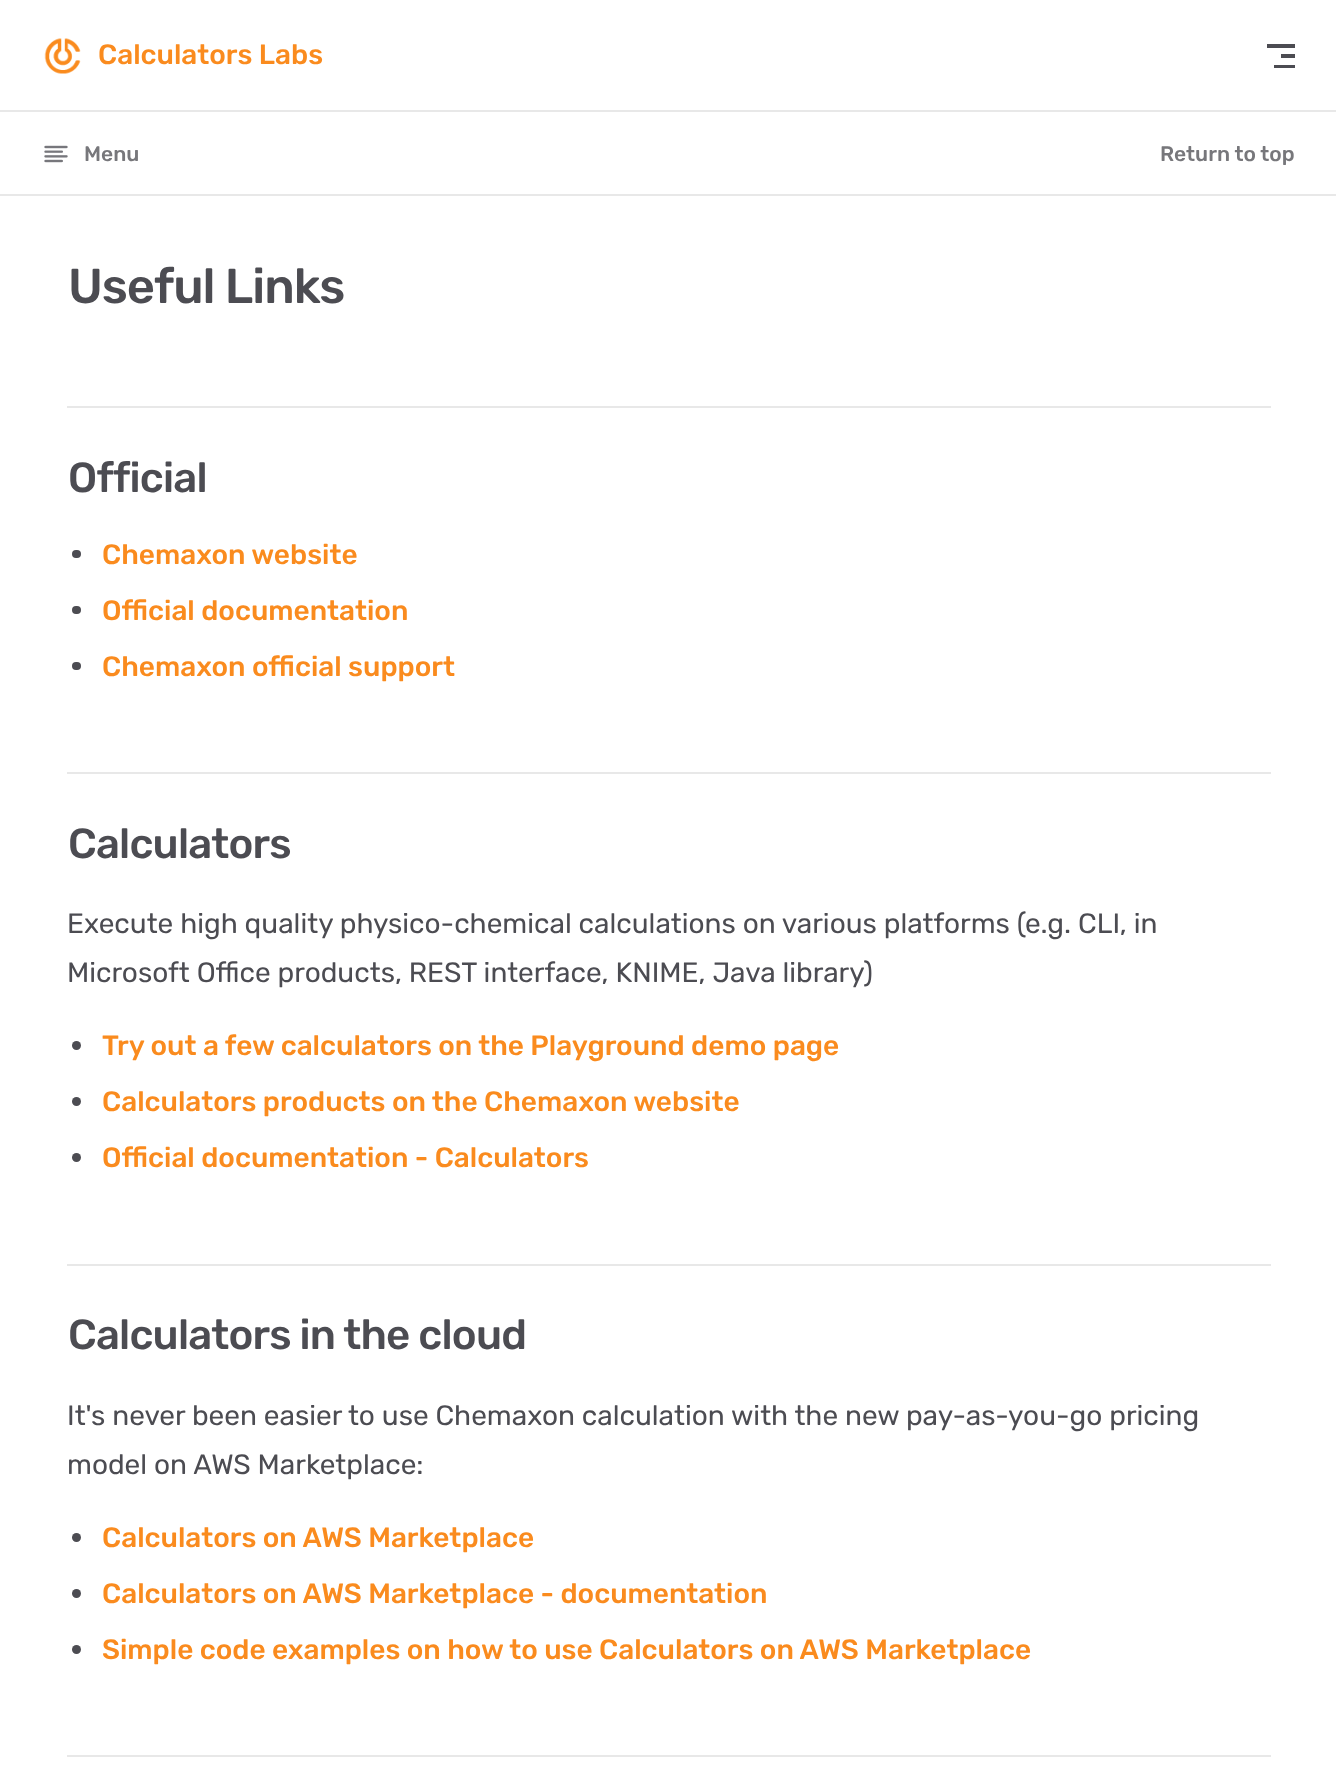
<!DOCTYPE html>
<meta charset="utf-8">
<style>body { margin: 0 } canvas { display: block }</style>
<canvas id="canvas" width="1336" height="1787"></canvas>
<img id="img1" src="images/1.png" hidden>
<img id="img2" src="images/2.png" hidden>
<script>
window.onload = function () {
    const canvas = document.getElementById('canvas');
    const context = canvas.getContext('2d');
    context.miterLimit = 4;
    context.fontKerning = 'normal';

    context.fillStyle = 'rgb(255, 255, 255)';
    context.fillRect(0, 0, 1336, 1787);
    context.fillStyle = 'rgb(232, 232, 232)';
    context.fillRect(0, 110, 1336, 2);
    context.drawImage(document.getElementById('img1'), 44, 38, 37, 36);
    context.fillStyle = 'rgb(76, 76, 82)';
    context.fillRect(1267, 44, 28, 4);
    context.fillRect(1281, 54, 14, 4);
    context.fillRect(1274, 65, 21, 3);
    context.fillStyle = 'rgb(232, 232, 232)';
    context.fillRect(0, 194, 1336, 2);
    context.drawImage(document.getElementById('img2'), 44, 145, 24, 18);
    context.fillRect(67, 406, 1204, 2);
    context.fillStyle = 'rgb(76, 76, 82)';
    context.beginPath();
    context.roundRect(72, 550, 9, 8, 4);
    context.fill();
    context.beginPath();
    context.roundRect(72, 606, 9, 8, 4);
    context.fill();
    context.beginPath();
    context.roundRect(72, 662, 9, 8, 4);
    context.fill();
    context.fillStyle = 'rgb(232, 232, 232)';
    context.fillRect(67, 772, 1204, 2);
    context.fillStyle = 'rgb(76, 76, 82)';
    context.beginPath();
    context.arc(76.5, 1045.5, 4.5, 0, 2 * Math.PI);
    context.fill();
    context.beginPath();
    context.arc(76.5, 1101.5, 4.5, 0, 2 * Math.PI);
    context.fill();
    context.beginPath();
    context.arc(76.5, 1157.5, 4.5, 0, 2 * Math.PI);
    context.fill();
    context.fillStyle = 'rgb(232, 232, 232)';
    context.fillRect(67, 1264, 1204, 2);
    context.fillStyle = 'rgb(76, 76, 82)';
    context.beginPath();
    context.arc(76.5, 1537.5, 4.5, 0, 2 * Math.PI);
    context.fill();
    context.beginPath();
    context.arc(76.5, 1593.5, 4.5, 0, 2 * Math.PI);
    context.fill();
    context.beginPath();
    context.arc(76.5, 1649.5, 4.5, 0, 2 * Math.PI);
    context.fill();
    context.fillStyle = 'rgb(232, 232, 232)';
    context.fillRect(67, 1755, 1204, 2);
    context.font = '300 28px Rubik';
    context.fillStyle = 'rgb(250, 139, 30)';
    context.fillText('Calculators Labs', 98, 64);
    context.font = '300 21px Rubik';
    context.fillStyle = 'rgb(119, 119, 123)';
    context.fillText('Menu', 84, 161);
    context.fillText('Return to top', 1160, 161);
    context.letterSpacing = '-1px';
    context.font = '300 49px Rubik';
    context.fillStyle = 'rgb(76, 76, 82)';
    context.fillText('Useful Links', 68, 303);
    context.letterSpacing = '-0.8px';
    context.font = '300 42px Rubik';
    context.fillText('Official', 68, 492);
    context.letterSpacing = '0px';
    context.font = '300 28px Rubik';
    context.fillStyle = 'rgb(250, 139, 30)';
    context.fillText('Chemaxon website', 102, 564);
    context.fillText('Official documentation', 102, 620);
    context.fillText('Chemaxon official support', 102, 676);
    context.letterSpacing = '-0.8px';
    context.font = '300 42px Rubik';
    context.fillStyle = 'rgb(76, 76, 82)';
    context.fillText('Calculators', 68, 858);
    context.letterSpacing = '0px';
    context.font = '300 28px "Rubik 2"';
    context.fillText('Execute high quality physico-chemical calculations on various platforms (e.g. CLI, in', 67, 933);
    context.fillText('Microsoft Office products, REST interface, KNIME, Java library)', 67, 982);
    context.font = '300 28px Rubik';
    context.fillStyle = 'rgb(250, 139, 30)';
    context.fillText('Try out a few calculators on the Playground demo page', 102, 1055);
    context.fillText('Calculators products on the Chemaxon website', 102, 1111);
    context.fillText('Official documentation - Calculators', 102, 1167);
    context.letterSpacing = '-0.8px';
    context.font = '300 42px Rubik';
    context.fillStyle = 'rgb(76, 76, 82)';
    context.fillText('Calculators in the cloud', 68, 1349);
    context.letterSpacing = '0px';
    context.font = '300 28px "Rubik 2"';
    context.fillText('It\'s never been easier to use Chemaxon calculation with the new pay-as-you-go pricing', 67, 1425);
    context.fillText('model on AWS Marketplace:', 67, 1474);
    context.font = '300 28px Rubik';
    context.fillStyle = 'rgb(250, 139, 30)';
    context.fillText('Calculators on AWS Marketplace', 102, 1547);
    context.fillText('Calculators on AWS Marketplace - documentation', 102, 1603);
    context.fillText('Simple code examples on how to use Calculators on AWS Marketplace', 102, 1659);
};
</script>
